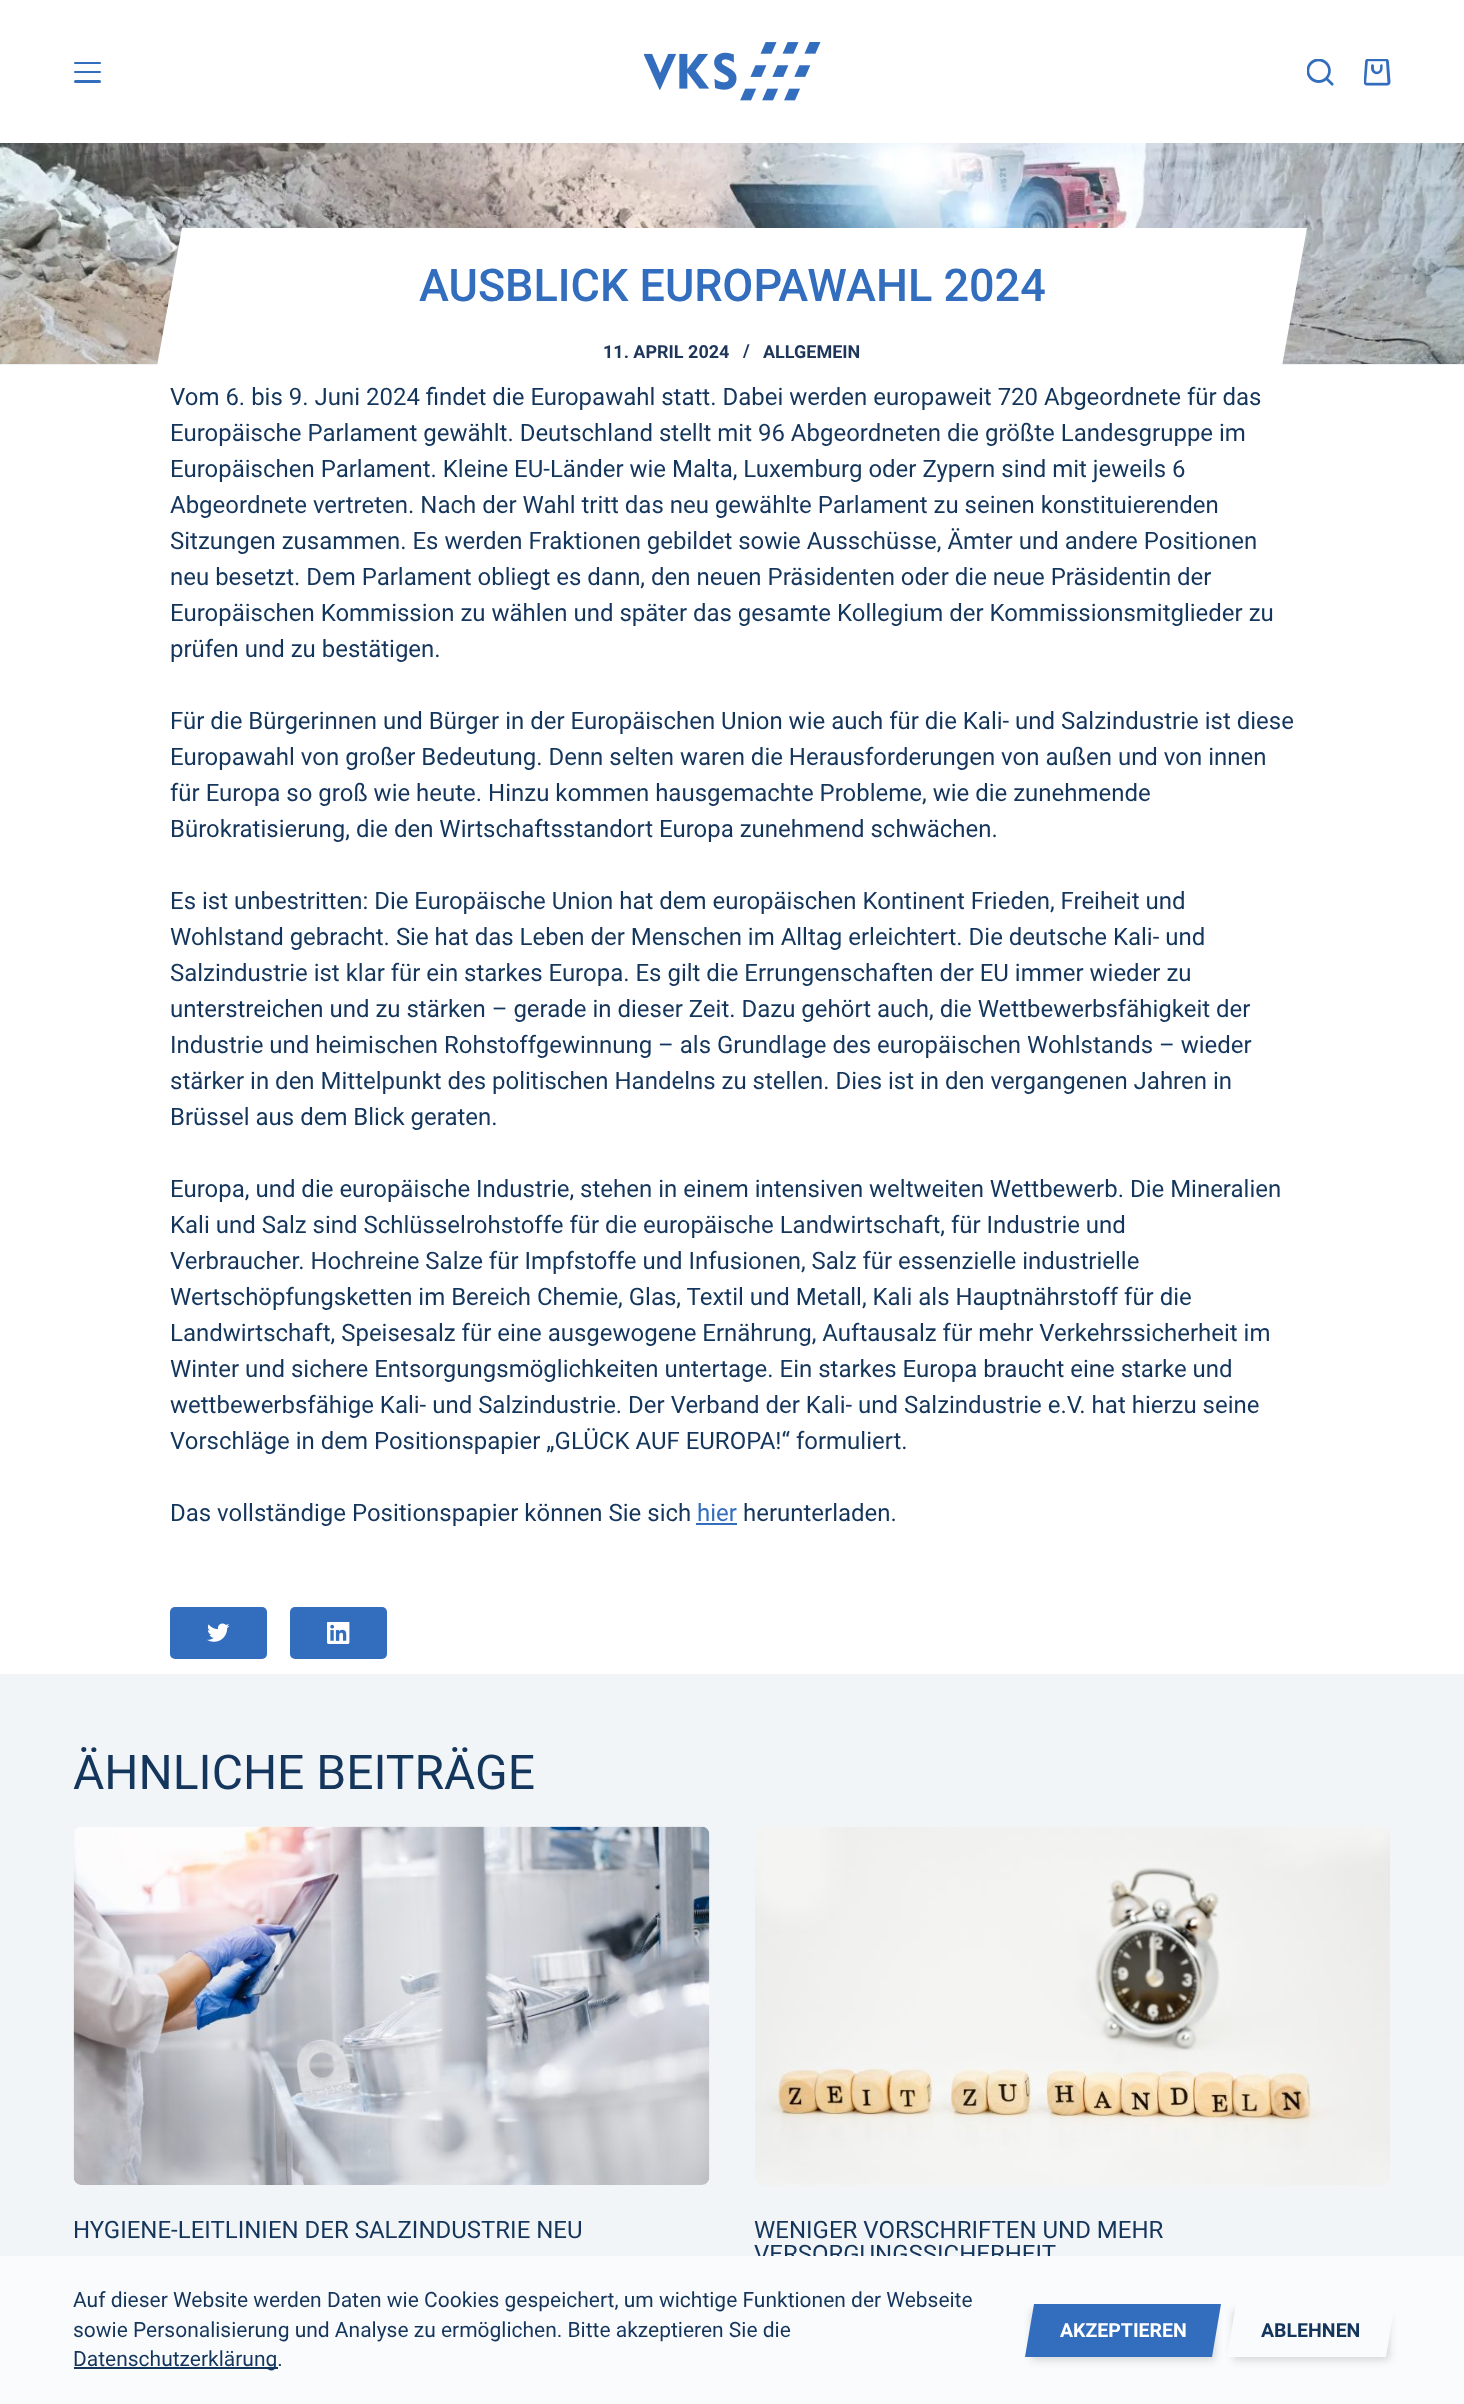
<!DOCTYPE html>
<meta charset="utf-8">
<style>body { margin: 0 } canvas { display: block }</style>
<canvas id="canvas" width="1464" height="2404"></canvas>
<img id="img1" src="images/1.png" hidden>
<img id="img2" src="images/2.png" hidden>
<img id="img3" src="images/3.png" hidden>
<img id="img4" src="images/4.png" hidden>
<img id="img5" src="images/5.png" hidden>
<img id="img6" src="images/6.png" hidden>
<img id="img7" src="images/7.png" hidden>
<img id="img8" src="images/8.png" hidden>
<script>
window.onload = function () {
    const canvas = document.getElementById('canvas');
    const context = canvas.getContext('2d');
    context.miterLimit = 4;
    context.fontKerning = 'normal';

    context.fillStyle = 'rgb(255, 255, 255)';
    context.fillRect(0, 0, 1464, 2404);
    context.fillStyle = 'rgb(50, 109, 190)';
    context.beginPath();
    context.roundRect(74, 62, 27, 2, 1);
    context.fill();
    context.beginPath();
    context.roundRect(74, 71, 27, 2, 1);
    context.fill();
    context.beginPath();
    context.roundRect(74, 80, 27, 3, 1.5);
    context.fill();
    context.drawImage(document.getElementById('img1'), 644, 42, 177, 59);
    context.drawImage(document.getElementById('img2'), 1307, 59, 27, 27);
    context.drawImage(document.getElementById('img3'), 1364, 59, 27, 27);
    context.fillStyle = 'rgb(238, 243, 247)';
    context.fillRect(0, 364, 1464, 1);
    context.drawImage(document.getElementById('img4'), 0, 143, 1464, 221);
    context.fillStyle = 'rgb(255, 255, 255)';
    context.beginPath();
    context.moveTo(182, 228);
    context.lineTo(1307, 228);
    context.lineTo(1282, 366);
    context.lineTo(157, 366);
    context.closePath();
    context.fill();
    context.fillStyle = 'rgb(50, 109, 190)';
    context.fillRect(696, 1523, 41, 2);
    context.beginPath();
    context.roundRect(170, 1607, 97, 52, 5);
    context.fill();
    context.drawImage(document.getElementById('img5'), 207, 1623, 23, 19);
    context.beginPath();
    context.roundRect(290, 1607, 97, 52, 5);
    context.fill();
    context.drawImage(document.getElementById('img6'), 327, 1622, 23, 22);
    context.fillStyle = 'rgb(242, 245, 247)';
    context.fillRect(0, 1674, 1464, 582);
    context.drawImage(document.getElementById('img7'), 73, 1826, 637, 359);
    context.drawImage(document.getElementById('img8'), 755, 1827, 635, 358);
    context.font = '500 45px Roboto';
    context.fillStyle = 'rgb(50, 109, 190)';
    context.fillText('AUSBLICK EUROPAWAHL 2024', 419, 301);
    context.font = 'bold 18px Roboto';
    context.fillStyle = 'rgb(30, 54, 90)';
    context.fillText('11. APRIL 2024', 603, 358);
    context.fillText('/', 743, 357);
    context.fillText('ALLGEMEIN', 763, 358);
    context.font = '24px Roboto';
    context.fillStyle = 'rgb(21, 54, 92)';
    context.fillText('Vom 6. bis 9. Juni 2024 findet die Europawahl statt. Dabei werden europaweit 720 Abgeordnete für das', 170, 405);
    context.fillText('Europäische Parlament gewählt. Deutschland stellt mit 96 Abgeordneten die größte Landesgruppe im', 170, 441);
    context.fillText('Europäischen Parlament. Kleine EU-Länder wie Malta, Luxemburg oder Zypern sind mit jeweils 6', 170, 477);
    context.fillText('Abgeordnete vertreten. Nach der Wahl tritt das neu gewählte Parlament zu seinen konstituierenden', 170, 513);
    context.fillText('Sitzungen zusammen. Es werden Fraktionen gebildet sowie Ausschüsse, Ämter und andere Positionen', 170, 549);
    context.fillText('neu besetzt. Dem Parlament obliegt es dann, den neuen Präsidenten oder die neue Präsidentin der', 170, 585);
    context.fillText('Europäischen Kommission zu wählen und später das gesamte Kollegium der Kommissionsmitglieder zu', 170, 621);
    context.fillText('prüfen und zu bestätigen.', 170, 657);
    context.fillText('Für die Bürgerinnen und Bürger in der Europäischen Union wie auch für die Kali- und Salzindustrie ist diese', 170, 729);
    context.fillText('Europawahl von großer Bedeutung. Denn selten waren die Herausforderungen von außen und von innen', 170, 765);
    context.fillText('für Europa so groß wie heute. Hinzu kommen hausgemachte Probleme, wie die zunehmende', 170, 801);
    context.fillText('Bürokratisierung, die den Wirtschaftsstandort Europa zunehmend schwächen.', 170, 837);
    context.fillText('Es ist unbestritten: Die Europäische Union hat dem europäischen Kontinent Frieden, Freiheit und', 170, 909);
    context.fillText('Wohlstand gebracht. Sie hat das Leben der Menschen im Alltag erleichtert. Die deutsche Kali- und', 170, 945);
    context.fillText('Salzindustrie ist klar für ein starkes Europa. Es gilt die Errungenschaften der EU immer wieder zu', 170, 981);
    context.fillText('unterstreichen und zu stärken – gerade in dieser Zeit. Dazu gehört auch, die Wettbewerbsfähigkeit der', 170, 1017);
    context.fillText('Industrie und heimischen Rohstoffgewinnung – als Grundlage des europäischen Wohlstands – wieder', 170, 1053);
    context.fillText('stärker in den Mittelpunkt des politischen Handelns zu stellen. Dies ist in den vergangenen Jahren in', 170, 1089);
    context.fillText('Brüssel aus dem Blick geraten.', 170, 1125);
    context.fillText('Europa, und die europäische Industrie, stehen in einem intensiven weltweiten Wettbewerb. Die Mineralien', 170, 1197);
    context.fillText('Kali und Salz sind Schlüsselrohstoffe für die europäische Landwirtschaft, für Industrie und', 170, 1233);
    context.fillText('Verbraucher. Hochreine Salze für Impfstoffe und Infusionen, Salz für essenzielle industrielle', 170, 1269);
    context.fillText('Wertschöpfungsketten im Bereich Chemie, Glas, Textil und Metall, Kali als Hauptnährstoff für die', 170, 1305);
    context.fillText('Landwirtschaft, Speisesalz für eine ausgewogene Ernährung, Auftausalz für mehr Verkehrssicherheit im', 170, 1341);
    context.fillText('Winter und sichere Entsorgungsmöglichkeiten untertage. Ein starkes Europa braucht eine starke und', 170, 1377);
    context.fillText('wettbewerbsfähige Kali- und Salzindustrie. Der Verband der Kali- und Salzindustrie e.V. hat hierzu seine', 170, 1413);
    context.fillText('Vorschläge in dem Positionspapier „GLÜCK AUF EUROPA!“ formuliert.', 170, 1449);
    context.fillText('Das vollständige Positionspapier können Sie sich', 170, 1521);
    context.fillStyle = 'rgb(50, 109, 190)';
    context.fillText('hier', 697, 1521);
    context.fillStyle = 'rgb(21, 54, 92)';
    context.fillText('herunterladen.', 743, 1521);
    context.font = '48px Roboto';
    context.fillText('ÄHNLICHE BEITRÄGE', 73, 1789);
    context.font = '24px Roboto';
    context.fillText('HYGIENE-LEITLINIEN DER SALZINDUSTRIE NEU', 73, 2238);
    context.fillText('WENIGER VORSCHRIFTEN UND MEHR', 754, 2238);
    context.fillText('VERSORGUNGSSICHERHEIT', 754, 2262);
    context.fillStyle = 'rgb(250, 251, 252)';
    context.fillRect(0, 2256, 1464, 148);
    context.font = '21px Roboto';
    context.fillStyle = 'rgb(21, 54, 92)';
    context.fillText('Auf dieser Website werden Daten wie Cookies gespeichert, um wichtige Funktionen der Webseite', 73, 2307);
    context.fillText('sowie Personalisierung und Analyse zu ermöglichen. Bitte akzeptieren Sie die', 73, 2337);
    context.fillRect(74, 2367, 204, 2);
    context.fillText('Datenschutzerklärung.', 73, 2366);
    context.fillStyle = 'rgba(0, 0, 0, 0.06)';
    context.filter = 'blur(3px)';
    context.beginPath();
    context.rect(1031, 2309, 184, 49);
    context.fill();
    context.filter = 'none';
    context.fillStyle = 'rgba(0, 0, 0, 0.1)';
    context.filter = 'blur(4.5px)';
    context.beginPath();
    context.rect(1031, 2312, 184, 49);
    context.fill();
    context.filter = 'none';
    context.fillStyle = 'rgb(50, 109, 190)';
    context.beginPath();
    context.moveTo(1034, 2304);
    context.lineTo(1221, 2304);
    context.lineTo(1212, 2357);
    context.lineTo(1025, 2357);
    context.closePath();
    context.fill();
    context.font = 'bold 19.5px Roboto';
    context.fillStyle = 'rgb(255, 255, 255)';
    context.fillText('AKZEPTIEREN', 1060, 2337);
    context.fillStyle = 'rgba(0, 0, 0, 0.06)';
    context.filter = 'blur(3px)';
    context.beginPath();
    context.rect(1233, 2309, 156, 49);
    context.fill();
    context.filter = 'none';
    context.fillStyle = 'rgba(0, 0, 0, 0.1)';
    context.filter = 'blur(4.5px)';
    context.beginPath();
    context.rect(1233, 2312, 156, 49);
    context.fill();
    context.filter = 'none';
    context.fillStyle = 'rgb(250, 251, 252)';
    context.beginPath();
    context.moveTo(1236, 2304);
    context.lineTo(1395, 2304);
    context.lineTo(1386, 2357);
    context.lineTo(1227, 2357);
    context.closePath();
    context.fill();
    context.fillStyle = 'rgb(21, 54, 92)';
    context.fillText('ABLEHNEN', 1261, 2337);
};
</script>
